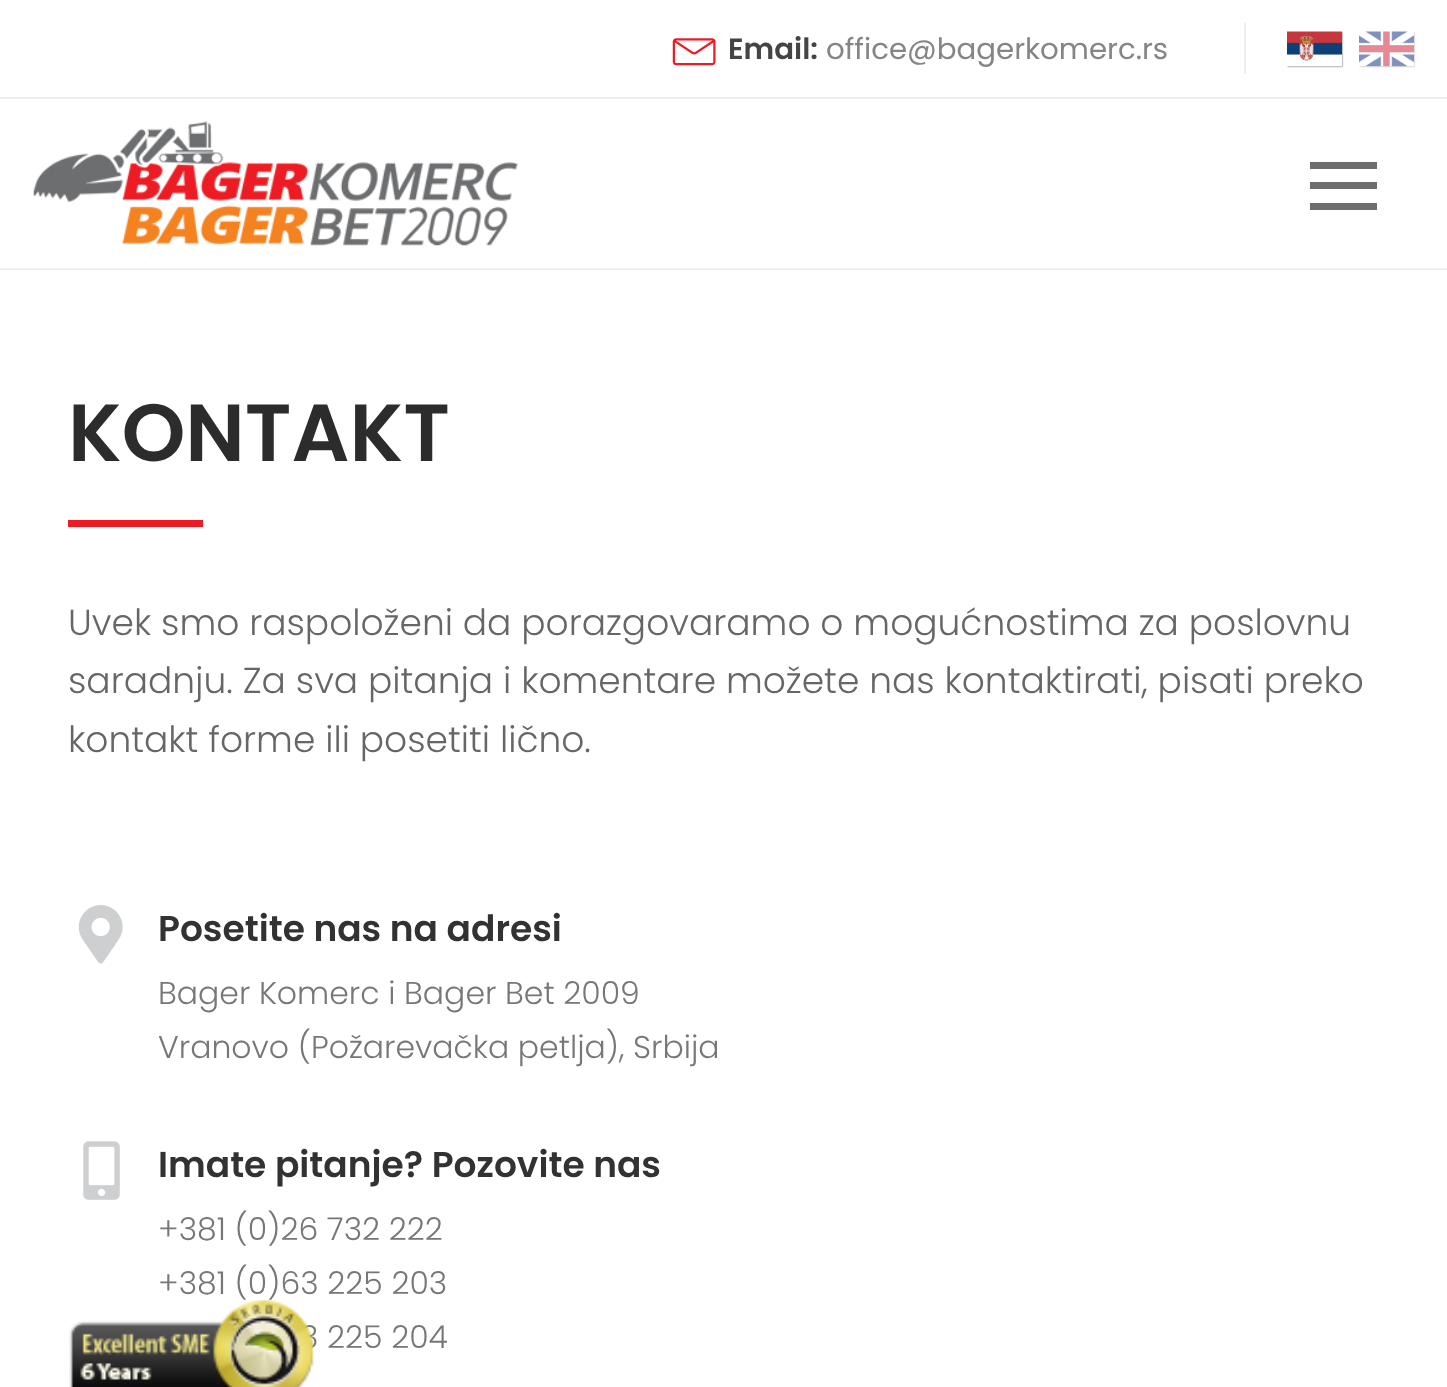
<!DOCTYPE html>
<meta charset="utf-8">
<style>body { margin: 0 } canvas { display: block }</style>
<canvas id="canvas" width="1447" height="1387"></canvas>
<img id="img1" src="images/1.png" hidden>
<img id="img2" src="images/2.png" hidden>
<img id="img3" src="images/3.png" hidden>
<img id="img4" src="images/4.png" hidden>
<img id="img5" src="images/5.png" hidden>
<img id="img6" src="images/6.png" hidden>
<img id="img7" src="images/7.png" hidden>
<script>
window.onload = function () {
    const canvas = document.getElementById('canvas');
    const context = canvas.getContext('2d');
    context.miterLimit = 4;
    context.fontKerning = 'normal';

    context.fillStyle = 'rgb(255, 255, 255)';
    context.fillRect(0, 0, 1447, 1387);
    context.fillStyle = 'rgb(238, 238, 238)';
    context.fillRect(0, 97, 1447, 2);
    context.drawImage(document.getElementById('img1'), 672, 38, 44, 28);
    context.fillRect(1244, 23, 2, 51);
    context.drawImage(document.getElementById('img2'), 1287, 31, 57, 37);
    context.drawImage(document.getElementById('img3'), 1359, 31, 57, 37);
    context.fillRect(0, 268, 1447, 2);
    context.drawImage(document.getElementById('img4'), 33, 121, 485, 125);
    context.fillStyle = 'rgb(109, 110, 112)';
    context.fillRect(1310, 162, 67, 7);
    context.fillRect(1310, 182, 67, 7);
    context.fillRect(1310, 203, 67, 7);
    context.fillStyle = 'rgb(237, 28, 36)';
    context.fillRect(68, 520, 135, 7);
    context.drawImage(document.getElementById('img5'), 78, 905, 45, 59);
    context.drawImage(document.getElementById('img6'), 83, 1141, 37, 59);
    context.font = '600 29.25px Poppins';
    context.fillStyle = 'rgb(68, 68, 68)';
    context.fillText('Email:', 728, 59);
    context.font = '29.25px Poppins';
    context.fillStyle = 'rgb(133, 133, 133)';
    context.fillText('office@bagerkomerc.rs', 826, 59);
    context.font = '600 81px Poppins';
    context.fillStyle = 'rgb(44, 44, 44)';
    context.fillText('KONTAKT', 68, 461);
    context.font = '300 36px Poppins';
    context.fillStyle = 'rgb(102, 102, 102)';
    context.fillText('Uvek smo raspoloženi da porazgovaramo o mogućnostima za poslovnu', 68, 635);
    context.fillText('saradnju. Za sva pitanja i komentare možete nas kontaktirati, pisati preko', 68, 693);
    context.fillText('kontakt forme ili posetiti lično.', 68, 752);
    context.font = '600 36px Poppins';
    context.fillStyle = 'rgb(50, 50, 50)';
    context.fillText('Posetite nas na adresi', 158, 941);
    context.font = '300 31.5px Poppins';
    context.fillStyle = 'rgb(119, 119, 119)';
    context.fillText('Bager Komerc i Bager Bet 2009', 158, 1004);
    context.fillText('Vranovo (Požarevačka petlja), Srbija', 158, 1058);
    context.font = '600 36px Poppins';
    context.fillStyle = 'rgb(50, 50, 50)';
    context.fillText('Imate pitanje? Pozovite nas', 158, 1177);
    context.font = '300 31.5px Poppins';
    context.fillStyle = 'rgb(119, 119, 119)';
    context.fillText('+381 (0)26 732 222', 158, 1240);
    context.fillText('+381 (0)63 225 203', 158, 1294);
    context.fillText('3 225 204', 300, 1348);
    context.drawImage(document.getElementById('img7'), 69, 1300, 245, 87);
};
</script>
